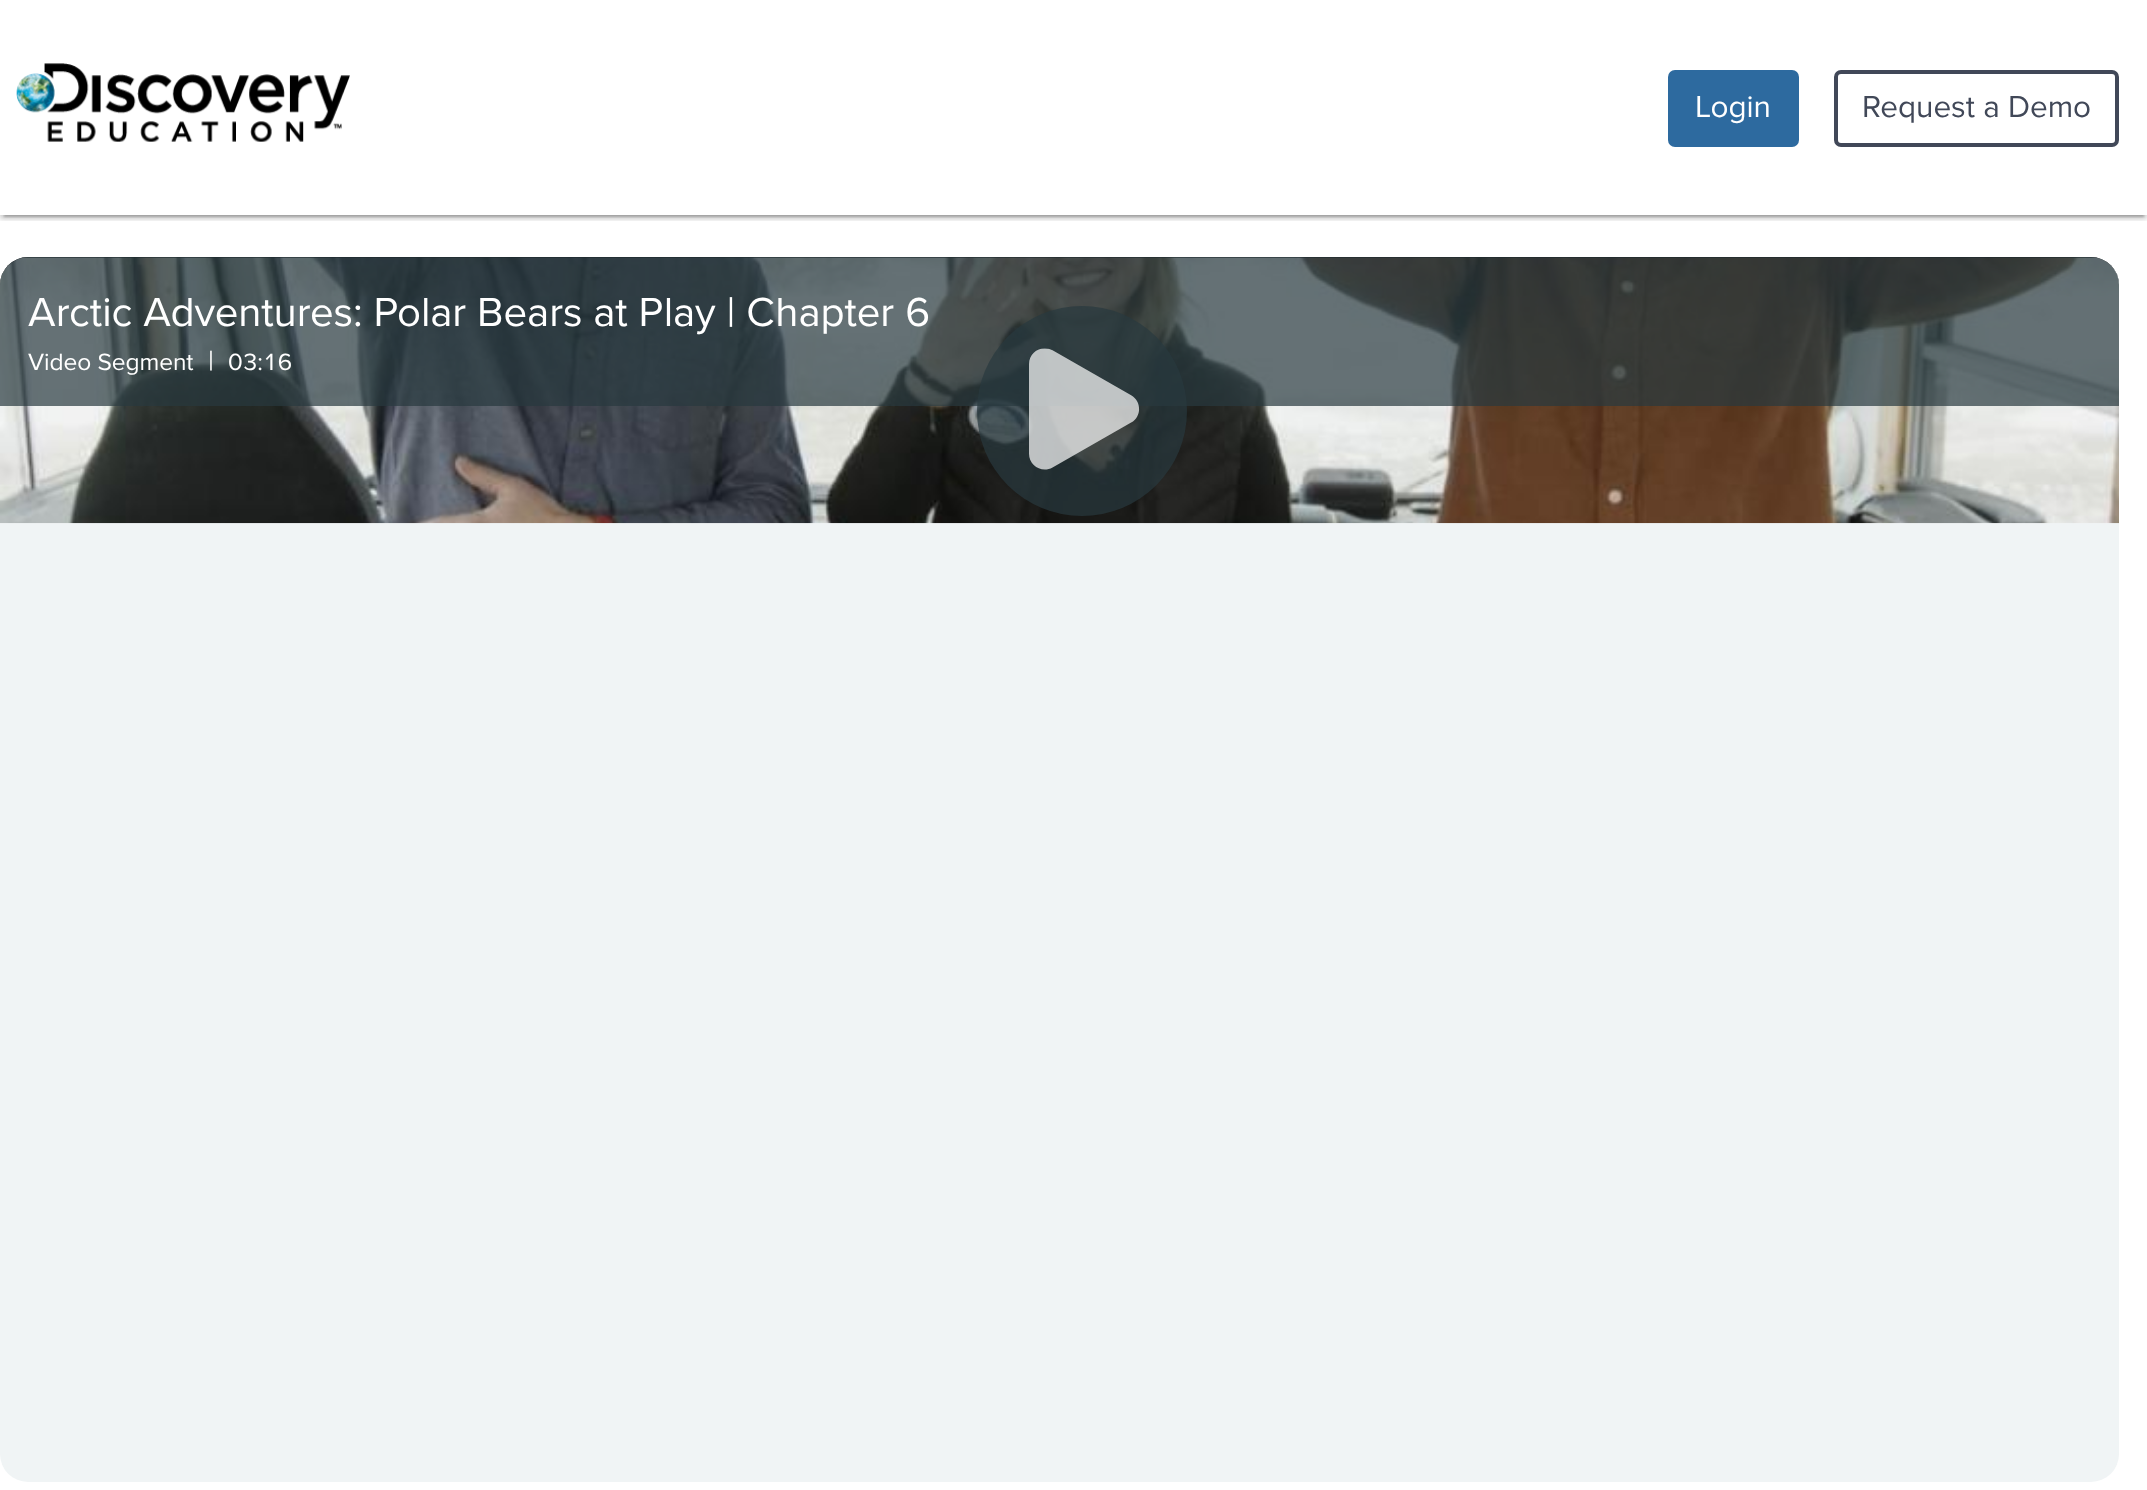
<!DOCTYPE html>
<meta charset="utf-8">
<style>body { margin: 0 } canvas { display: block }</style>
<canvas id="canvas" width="2147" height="1490"></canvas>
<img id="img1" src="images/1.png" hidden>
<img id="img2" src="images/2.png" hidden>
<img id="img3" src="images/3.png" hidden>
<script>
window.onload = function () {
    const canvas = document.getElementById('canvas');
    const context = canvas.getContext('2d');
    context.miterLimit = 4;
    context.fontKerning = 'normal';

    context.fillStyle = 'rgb(255, 255, 255)';
    context.fillRect(0, 0, 2147, 1490);
    context.save();
    context.beginPath();
    context.rect(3, 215, 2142, 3);
    context.clip();
    context.fillStyle = 'rgba(0, 0, 0, 0.2)';
    context.filter = 'blur(1px)';
    context.beginPath();
    context.rect(4, 9, 2140, 208);
    context.fill();
    context.filter = 'none';
    context.restore();
    context.save();
    context.beginPath();
    context.rect(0, 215, 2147, 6);
    context.clip();
    context.fillStyle = 'rgba(0, 0, 0, 0.12)';
    context.filter = 'blur(4.5px)';
    context.beginPath();
    context.rect(0, 2, 2147, 215);
    context.fill();
    context.filter = 'none';
    context.fillStyle = 'rgba(0, 0, 0, 0.14)';
    context.filter = 'blur(2px)';
    context.beginPath();
    context.rect(0, 4, 2147, 215);
    context.fill();
    context.filter = 'none';
    context.restore();
    context.drawImage(document.getElementById('img1'), 16, 63, 334, 79);
    context.fillStyle = 'rgb(45, 106, 159)';
    context.beginPath();
    context.roundRect(1668, 70, 131, 77, 7);
    context.fill();
    context.beginPath();
    context.roundRect(1836, 72, 281, 73, 5);
    context.strokeStyle = 'rgb(65, 72, 88)';
    context.lineWidth = 4;
    context.stroke();
    context.fillStyle = 'rgb(240, 244, 245)';
    context.beginPath();
    context.roundRect(0, 257, 2119, 1225, 28);
    context.fill();
    context.fillStyle = 'rgb(0, 0, 0)';
    context.beginPath();
    context.roundRect(0, 257, 2119, 266, [28, 28, 0, 0]);
    context.fill();
    context.drawImage(document.getElementById('img2'), 0, 257, 2119, 267);
    context.fillStyle = 'rgba(40, 57, 62, 0.7)';
    context.beginPath();
    context.roundRect(0, 257, 2119, 149, [28, 28, 0, 0]);
    context.fill();
    context.beginPath();
    context.arc(1082, 411, 105, 0, 2 * Math.PI);
    context.fill();
    context.drawImage(document.getElementById('img3'), 1029, 348, 111, 122);
    context.font = '31.5px Proxima Nova';
    context.fillStyle = 'rgb(255, 255, 255)';
    context.fillText('Login', 1695, 117);
    context.fillStyle = 'rgb(65, 72, 88)';
    context.fillText('Request a Demo', 1862, 117);
    context.font = '42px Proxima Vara';
    context.fillStyle = 'rgb(255, 255, 255)';
    context.fillText('Arctic Adventures: Polar Bears at Play | Chapter 6', 28, 326);
    context.font = '24.5px Proxima Vara';
    context.fillText('Video Segment', 28, 370);
    context.font = '28px Proxima Vara';
    context.fillText('|', 208, 370);
    context.font = '24.5px Proxima Vara';
    context.fillText('03:16', 228, 370);
};
</script>
